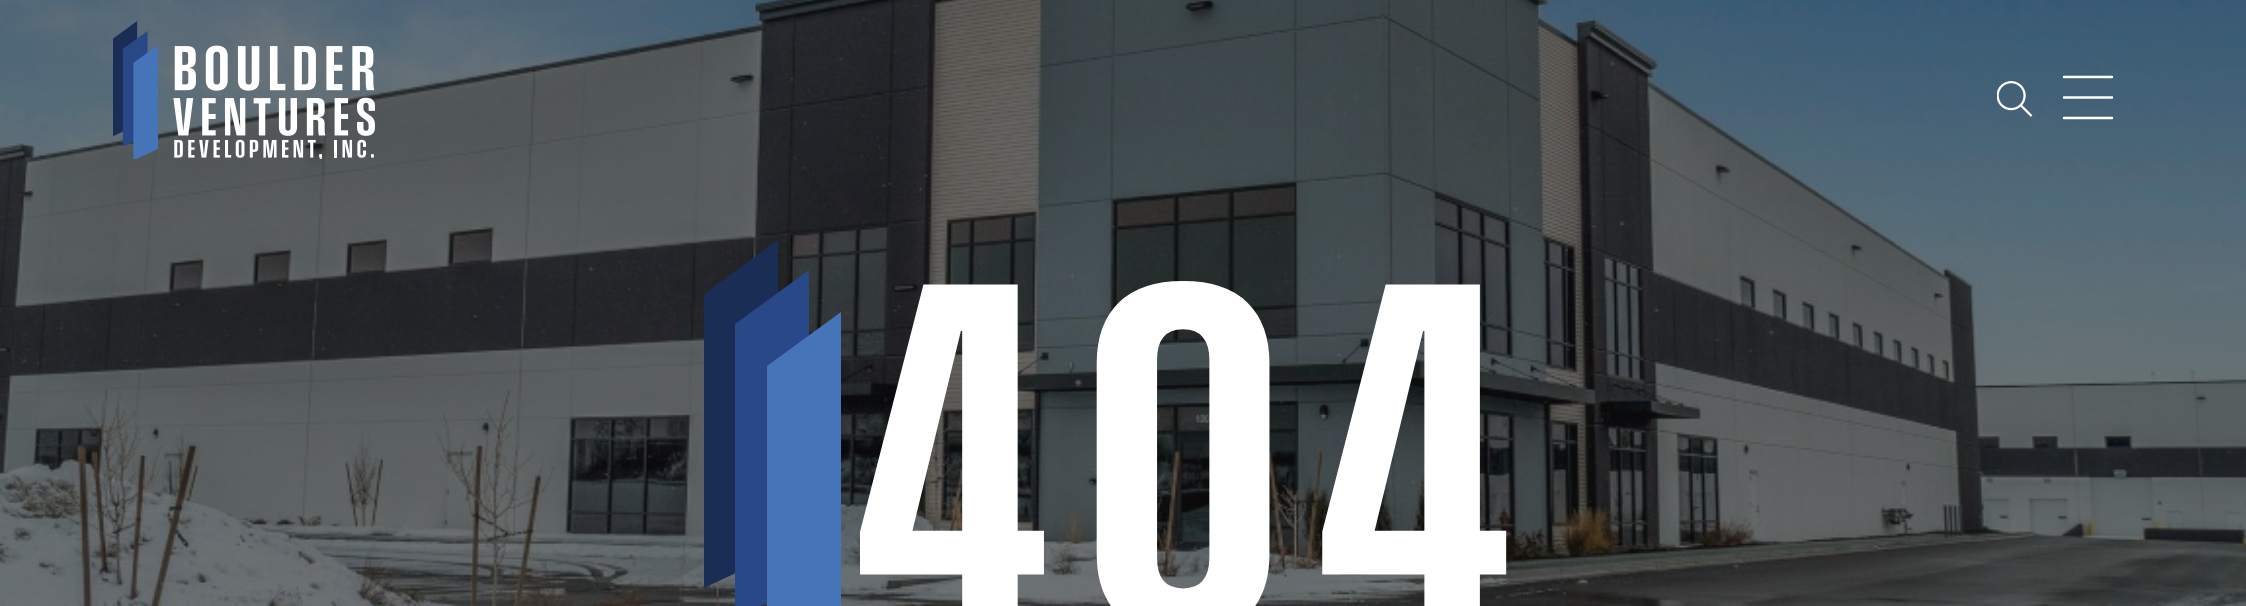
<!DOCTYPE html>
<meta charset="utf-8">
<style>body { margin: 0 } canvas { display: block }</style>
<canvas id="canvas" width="2246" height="606"></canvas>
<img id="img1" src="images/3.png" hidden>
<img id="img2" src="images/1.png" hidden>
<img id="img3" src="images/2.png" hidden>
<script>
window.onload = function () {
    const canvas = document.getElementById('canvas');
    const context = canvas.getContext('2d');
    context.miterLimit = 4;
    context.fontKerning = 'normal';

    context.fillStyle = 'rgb(255, 255, 255)';
    context.fillRect(0, 0, 2246, 606);
    context.drawImage(document.getElementById('img1'), 0, 0, 2246, 606);
    context.drawImage(document.getElementById('img2'), 113, 21, 262, 138);
    context.drawImage(document.getElementById('img3'), 1997, 81, 36, 36);
    context.beginPath();
    context.moveTo(2064, 77);
    context.lineTo(2112, 77);
    context.moveTo(2064, 97.5);
    context.lineTo(2112, 97.5);
    context.moveTo(2112, 118);
    context.lineTo(2064, 118);
    context.strokeStyle = 'rgb(255, 255, 255)';
    context.lineWidth = 2.4;
    context.lineCap = 'round';
    context.stroke();
    context.fillStyle = 'rgb(26, 46, 85)';
    context.beginPath();
    context.moveTo(778, 553);
    context.lineTo(704, 588);
    context.lineTo(704, 294);
    context.lineTo(778, 240);
    context.closePath();
    context.fill();
    context.fillStyle = 'rgb(41, 72, 136)';
    context.beginPath();
    context.moveTo(809, 583);
    context.lineTo(735, 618);
    context.lineTo(735, 324);
    context.lineTo(809, 270);
    context.closePath();
    context.fill();
    context.fillStyle = 'rgb(70, 116, 185)';
    context.beginPath();
    context.moveTo(841, 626);
    context.lineTo(767, 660);
    context.lineTo(767, 366);
    context.lineTo(841, 312);
    context.closePath();
    context.fill();
    context.letterSpacing = '26px';
    context.font = 'bold 525px "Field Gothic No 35"';
    context.fillStyle = 'rgb(255, 255, 255)';
    context.fillText('404', 849, 633);
};
</script>
